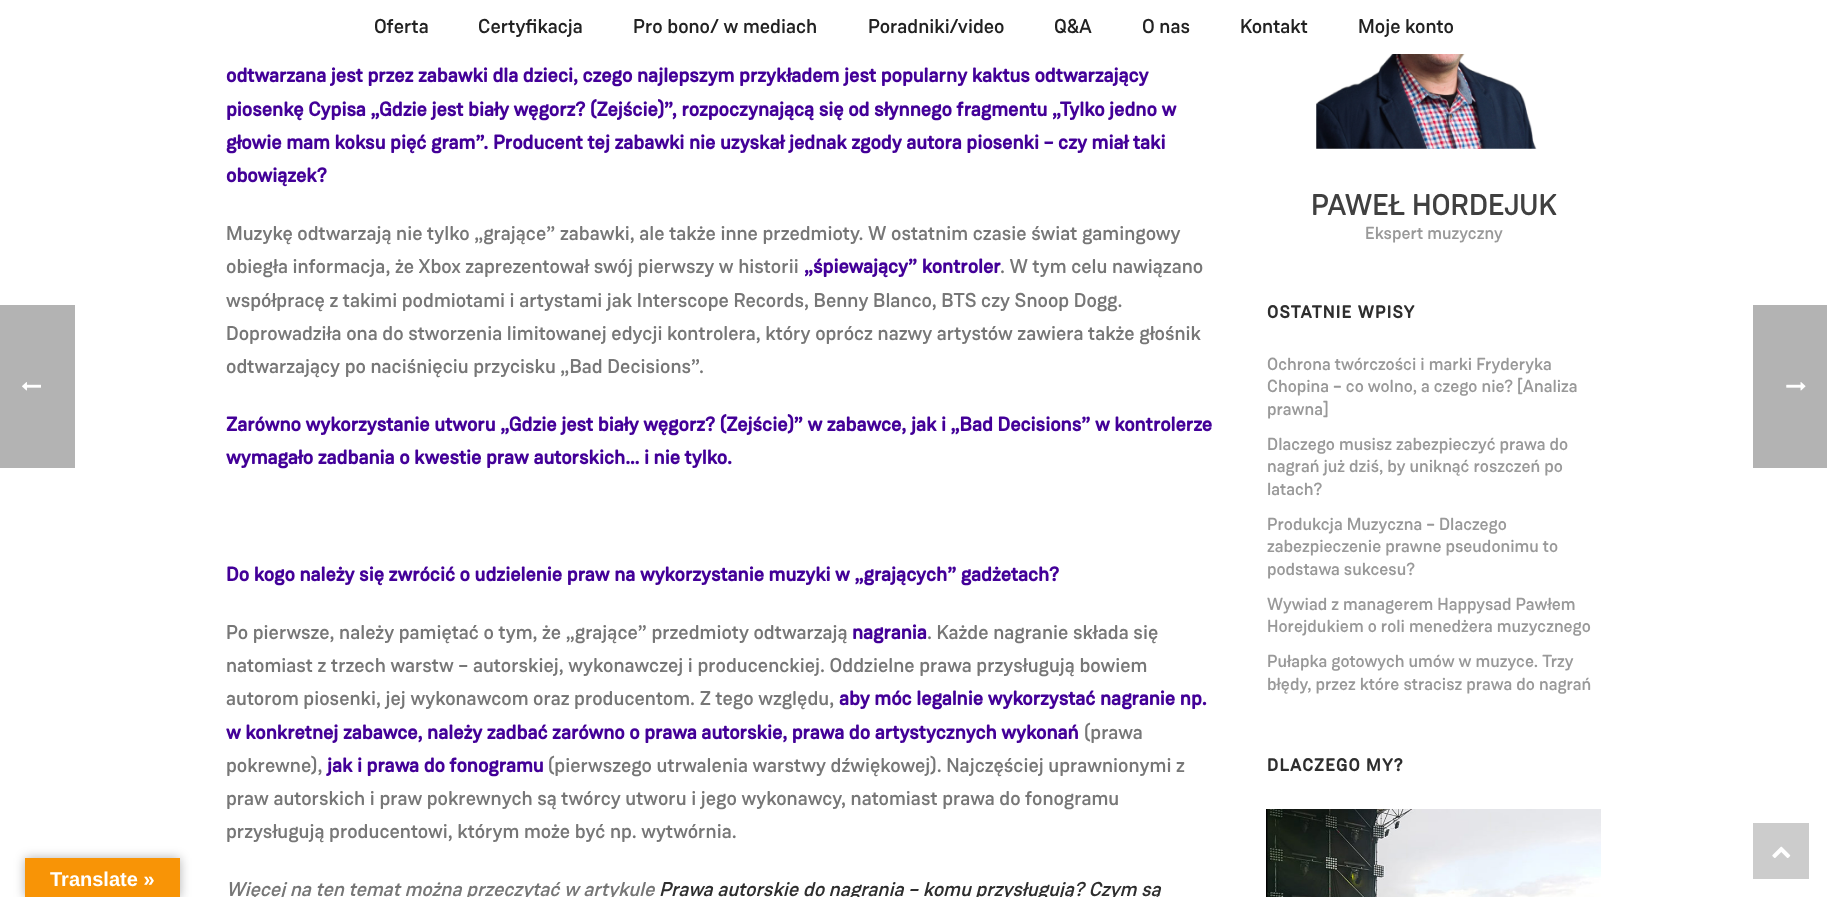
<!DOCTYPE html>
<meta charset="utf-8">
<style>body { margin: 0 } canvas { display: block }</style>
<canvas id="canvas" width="1827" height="897"></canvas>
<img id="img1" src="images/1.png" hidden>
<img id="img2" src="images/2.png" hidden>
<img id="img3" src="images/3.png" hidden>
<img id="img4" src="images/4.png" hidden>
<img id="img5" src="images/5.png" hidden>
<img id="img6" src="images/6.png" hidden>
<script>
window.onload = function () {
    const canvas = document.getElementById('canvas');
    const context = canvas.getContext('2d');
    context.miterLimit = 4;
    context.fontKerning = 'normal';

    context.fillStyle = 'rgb(255, 255, 255)';
    context.fillRect(0, 0, 1827, 897);
    context.fillStyle = 'rgb(179, 179, 179)';
    context.fillRect(0, 305, 75, 163);
    context.drawImage(document.getElementById('img1'), 22, 382, 19, 9);
    context.drawImage(document.getElementById('img2'), 1316, 54, 221, 95);
    context.drawImage(document.getElementById('img3'), 1266, 809, 2, 88);
    context.drawImage(document.getElementById('img4'), 1267, 809, 334, 88);
    context.fillRect(1753, 305, 74, 163);
    context.drawImage(document.getElementById('img5'), 1786, 382, 20, 9);
    context.fillStyle = 'rgba(0, 0, 0, 0.3)';
    context.filter = 'blur(5.5px)';
    context.beginPath();
    context.rect(25, 858, 155, 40);
    context.fill();
    context.filter = 'none';
    context.fillStyle = 'rgb(248, 148, 6)';
    context.fillRect(25, 858, 155, 39);
    context.fillStyle = 'rgb(204, 204, 204)';
    context.fillRect(1753, 823, 56, 56);
    context.drawImage(document.getElementById('img6'), 1772, 846, 19, 12);
    context.font = '20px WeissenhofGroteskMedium';
    context.fillStyle = 'rgb(34, 34, 34)';
    context.fillText('Oferta', 374, 33);
    context.fillText('Certyfikacja', 478, 33);
    context.fillText('Pro bono/ w mediach', 633, 33);
    context.fillText('Poradniki/video', 868, 33);
    context.fillText('Q&A', 1054, 33);
    context.fillText('O nas', 1142, 33);
    context.fillText('Kontakt', 1240, 33);
    context.fillText('Moje konto', 1358, 33);
    context.font = 'bold 20px WeissenhofGroteskMedium';
    context.fillStyle = 'rgb(67, 0, 152)';
    context.fillText('odtwarzana jest przez zabawki dla dzieci, czego najlepszym przykładem jest popularny kaktus odtwarzający', 226, 82);
    context.fillText('piosenkę Cypisa „Gdzie jest biały węgorz? (Zejście)”, rozpoczynającą się od słynnego fragmentu „Tylko jedno w', 226, 116);
    context.fillText('głowie mam koksu pięć gram”. Producent tej zabawki nie uzyskał jednak zgody autora piosenki – czy miał taki', 226, 149);
    context.fillText('obowiązek?', 226, 182);
    context.font = '20px WeissenhofGroteskMedium';
    context.fillStyle = 'rgb(119, 119, 119)';
    context.fillText('Muzykę odtwarzają nie tylko „grające” zabawki, ale także inne przedmioty. W ostatnim czasie świat gamingowy', 226, 240);
    context.fillText('obiegła informacja, że Xbox zaprezentował swój pierwszy w historii', 226, 273);
    context.font = 'bold 20px WeissenhofGroteskMedium';
    context.fillStyle = 'rgb(67, 0, 152)';
    context.fillText('„śpiewający” kontroler', 804, 273);
    context.font = '20px WeissenhofGroteskMedium';
    context.fillStyle = 'rgb(119, 119, 119)';
    context.fillText('. W tym celu nawiązano', 1000, 273);
    context.fillText('współpracę z takimi podmiotami i artystami jak Interscope Records, Benny Blanco, BTS czy Snoop Dogg.', 226, 307);
    context.fillText('Doprowadziła ona do stworzenia limitowanej edycji kontrolera, który oprócz nazwy artystów zawiera także głośnik', 226, 340);
    context.fillText('odtwarzający po naciśnięciu przycisku „Bad Decisions”.', 226, 373);
    context.font = 'bold 20px WeissenhofGroteskMedium';
    context.fillStyle = 'rgb(67, 0, 152)';
    context.fillText('Zarówno wykorzystanie utworu „Gdzie jest biały węgorz? (Zejście)” w zabawce, jak i „Bad Decisions” w kontrolerze', 226, 431);
    context.fillText('wymagało zadbania o kwestie praw autorskich… i nie tylko.', 226, 464);
    context.fillText('Do kogo należy się zwrócić o udzielenie praw na wykorzystanie muzyki w „grających” gadżetach?', 226, 581);
    context.font = '20px WeissenhofGroteskMedium';
    context.fillStyle = 'rgb(119, 119, 119)';
    context.fillText('Po pierwsze, należy pamiętać o tym, że „grające” przedmioty odtwarzają', 226, 639);
    context.font = 'bold 20px WeissenhofGroteskMedium';
    context.fillStyle = 'rgb(67, 0, 152)';
    context.fillText('nagrania', 852, 639);
    context.font = '20px WeissenhofGroteskMedium';
    context.fillStyle = 'rgb(119, 119, 119)';
    context.fillText('. Każde nagranie składa się', 927, 639);
    context.fillText('natomiast z trzech warstw – autorskiej, wykonawczej i producenckiej. Oddzielne prawa przysługują bowiem', 226, 672);
    context.fillText('autorom piosenki, jej wykonawcom oraz producentom. Z tego względu,', 226, 705);
    context.font = 'bold 20px WeissenhofGroteskMedium';
    context.fillStyle = 'rgb(67, 0, 152)';
    context.fillText('aby móc legalnie wykorzystać nagranie np.', 839, 705);
    context.fillText('w konkretnej zabawce, należy zadbać zarówno o prawa autorskie, prawa do artystycznych wykonań', 226, 739);
    context.font = '20px WeissenhofGroteskMedium';
    context.fillStyle = 'rgb(119, 119, 119)';
    context.fillText('(prawa', 1084, 739);
    context.fillText('pokrewne),', 226, 772);
    context.font = 'bold 20px WeissenhofGroteskMedium';
    context.fillStyle = 'rgb(67, 0, 152)';
    context.fillText('jak i prawa do fonogramu', 327, 772);
    context.font = '20px WeissenhofGroteskMedium';
    context.fillStyle = 'rgb(119, 119, 119)';
    context.fillText('(pierwszego utrwalenia warstwy dźwiękowej). Najczęściej uprawnionymi z', 548, 772);
    context.fillText('praw autorskich i praw pokrewnych są twórcy utworu i jego wykonawcy, natomiast prawa do fonogramu', 226, 805);
    context.fillText('przysługują producentowi, którym może być np. wytwórnia.', 226, 838);
    context.font = 'italic 20px WeissenhofGroteskMedium';
    context.fillText('Więcej na ten temat można przeczytać w artykule', 226, 896);
    context.fillStyle = 'rgb(46, 46, 46)';
    context.fillText('Prawa autorskie do nagrania – komu przysługują? Czym są', 659, 896);
    context.font = '30px WeissenhofGroteskMedium';
    context.fillStyle = 'rgb(64, 64, 64)';
    context.fillText('PAWEŁ HORDEJUK', 1311, 215);
    context.font = '17.5px WeissenhofGroteskMedium';
    context.fillStyle = 'rgb(153, 153, 153)';
    context.fillText('Ekspert muzyczny', 1365, 239);
    context.letterSpacing = '1.25px';
    context.font = 'bold 17.5px WeissenhofGroteskMedium';
    context.fillStyle = 'rgb(46, 46, 46)';
    context.fillText('OSTATNIE WPISY', 1267, 318);
    context.letterSpacing = '0px';
    context.font = '17.5px WeissenhofGroteskMedium';
    context.fillStyle = 'rgb(153, 153, 153)';
    context.fillText('Ochrona twórczości i marki Fryderyka', 1267, 370);
    context.fillText('Chopina – co wolno, a czego nie? [Analiza', 1267, 392);
    context.fillText('prawna]', 1267, 415);
    context.fillText('Dlaczego musisz zabezpieczyć prawa do', 1267, 450);
    context.fillText('nagrań już dziś, by uniknąć roszczeń po', 1267, 472);
    context.fillText('latach?', 1267, 495);
    context.fillText('Produkcja Muzyczna – Dlaczego', 1267, 530);
    context.fillText('zabezpieczenie prawne pseudonimu to', 1267, 552);
    context.fillText('podstawa sukcesu?', 1267, 575);
    context.fillText('Wywiad z managerem Happysad Pawłem', 1267, 610);
    context.fillText('Horejdukiem o roli menedżera muzycznego', 1267, 632);
    context.fillText('Pułapka gotowych umów w muzyce. Trzy', 1267, 667);
    context.fillText('błędy, przez które stracisz prawa do nagrań', 1267, 690);
    context.letterSpacing = '1.25px';
    context.font = 'bold 17.5px WeissenhofGroteskMedium';
    context.fillStyle = 'rgb(46, 46, 46)';
    context.fillText('DLACZEGO MY?', 1267, 771);
    context.letterSpacing = '0px';
    context.font = 'bold 20px Liberation Sans';
    context.fillStyle = 'rgb(255, 255, 255)';
    context.fillText('Translate »', 50, 886);
};
</script>
